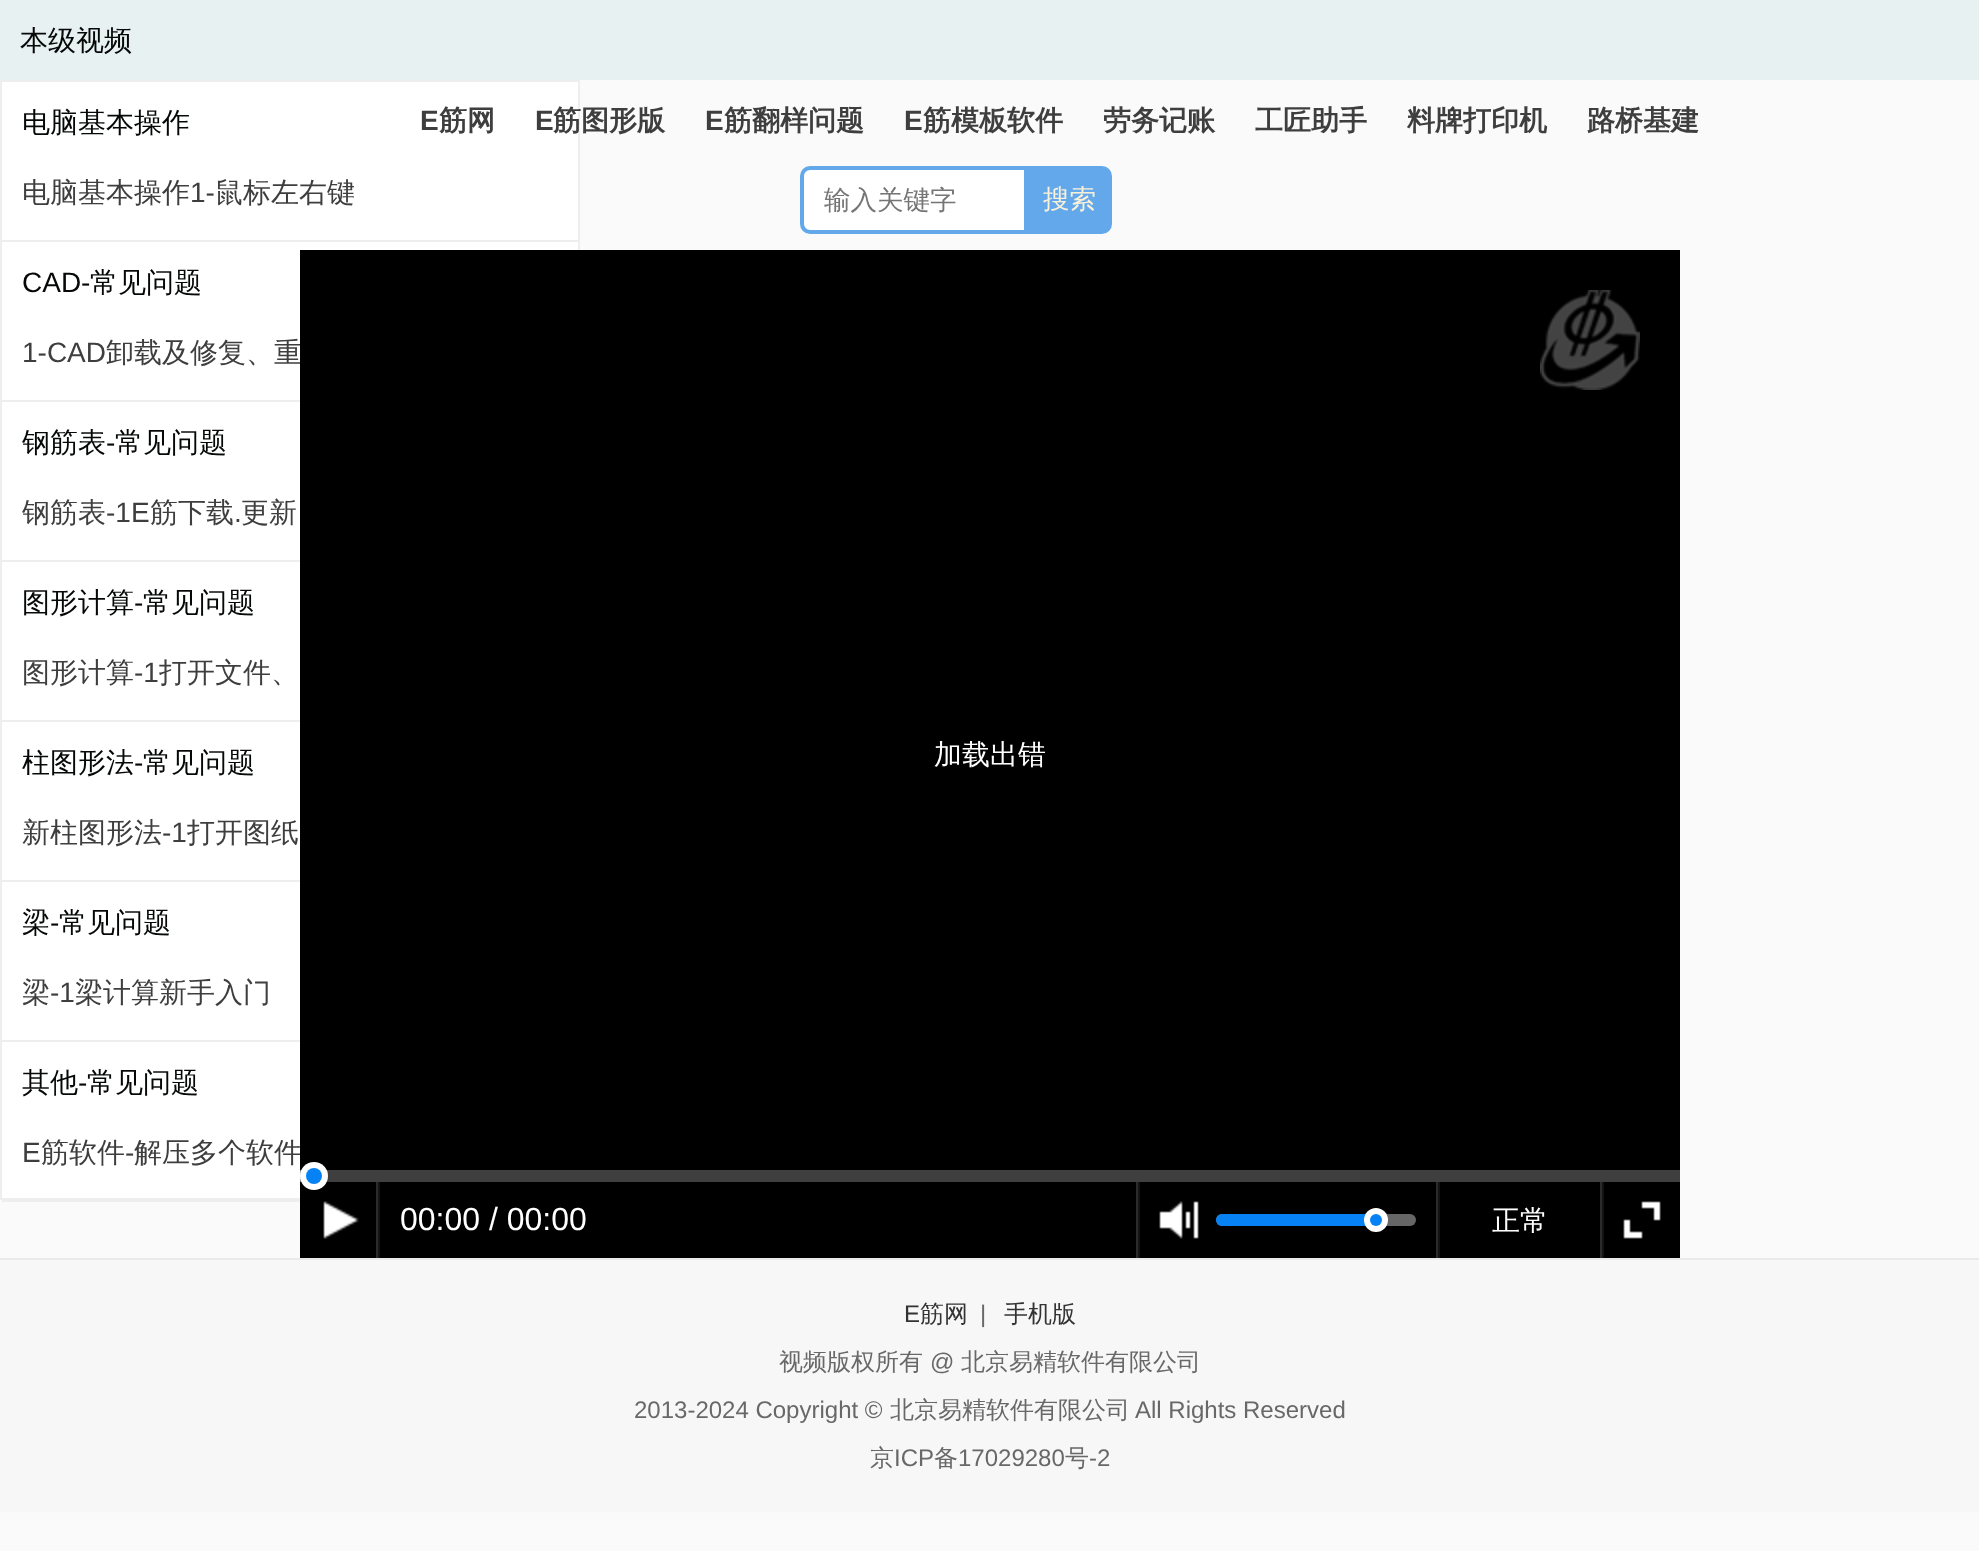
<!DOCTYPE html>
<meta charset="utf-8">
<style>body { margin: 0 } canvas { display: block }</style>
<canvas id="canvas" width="1979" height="1551"></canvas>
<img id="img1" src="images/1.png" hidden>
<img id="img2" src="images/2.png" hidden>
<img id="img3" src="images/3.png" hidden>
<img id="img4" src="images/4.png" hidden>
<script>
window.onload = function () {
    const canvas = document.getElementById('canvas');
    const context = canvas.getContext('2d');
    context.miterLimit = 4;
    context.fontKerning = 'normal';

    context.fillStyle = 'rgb(250, 250, 250)';
    context.fillRect(0, 0, 1979, 1551);
    context.fillStyle = 'rgb(232, 241, 242)';
    context.fillRect(0, 0, 1979, 80);
    context.fillStyle = 'rgb(255, 255, 255)';
    context.beginPath();
    context.rect(1, 81, 578, 1118);
    context.fill();
    context.strokeStyle = 'rgb(238, 238, 238)';
    context.lineWidth = 2;
    context.stroke();
    context.fillStyle = 'rgb(238, 238, 238)';
    context.fillRect(2, 240, 576, 2);
    context.fillRect(2, 400, 298, 2);
    context.fillRect(2, 560, 298, 2);
    context.fillRect(2, 720, 298, 2);
    context.fillRect(2, 880, 298, 2);
    context.fillRect(2, 1040, 298, 2);
    context.fillRect(2, 1200, 298, 2);
    context.fillStyle = 'rgb(255, 255, 255)';
    context.beginPath();
    context.roundRect(802, 168, 224, 64, [8, 0, 0, 8]);
    context.fill();
    context.strokeStyle = 'rgb(98, 168, 234)';
    context.lineWidth = 4;
    context.stroke();
    context.fillStyle = 'rgb(98, 168, 234)';
    context.beginPath();
    context.roundRect(1028, 166, 84, 68, [0, 10, 10, 0]);
    context.fill();
    context.fillStyle = 'rgb(247, 247, 247)';
    context.fillRect(0, 1260, 1979, 252);
    context.fillStyle = 'rgb(234, 234, 234)';
    context.fillRect(0, 1258, 1979, 2);
    context.font = '500 28px WenQuanYi Zen Hei';
    context.fillStyle = 'rgb(6, 8, 8)';
    context.fillText('本级视频', 20, 50);
    context.fillText('电脑基本操作', 22, 132);
    context.fillStyle = 'rgb(62, 62, 62)';
    context.fillText('电脑基本操作', 22, 202);
    context.font = '28px Liberation Sans';
    context.fillText('1-', 190, 202);
    context.font = '500 28px WenQuanYi Zen Hei';
    context.fillText('鼠标左右键', 215, 202);
    context.font = '28px Liberation Sans';
    context.fillStyle = 'rgb(6, 8, 8)';
    context.fillText('CAD-', 22, 292);
    context.font = '500 28px WenQuanYi Zen Hei';
    context.fillText('常见问题', 90, 292);
    context.font = '28px Liberation Sans';
    context.fillStyle = 'rgb(62, 62, 62)';
    context.fillText('1-CAD', 22, 362);
    context.font = '500 28px WenQuanYi Zen Hei';
    context.fillText('卸载及修复、重', 106, 362);
    context.fillStyle = 'rgb(6, 8, 8)';
    context.fillText('钢筋表', 22, 452);
    context.font = '28px Liberation Sans';
    context.fillText('-', 106, 452);
    context.font = '500 28px WenQuanYi Zen Hei';
    context.fillText('常见问题', 115, 452);
    context.fillStyle = 'rgb(62, 62, 62)';
    context.fillText('钢筋表', 22, 522);
    context.font = '28px Liberation Sans';
    context.fillText('-1E', 106, 522);
    context.font = '500 28px WenQuanYi Zen Hei';
    context.fillText('筋下载', 150, 522);
    context.font = '28px Liberation Sans';
    context.fillText('.', 234, 522);
    context.font = '500 28px WenQuanYi Zen Hei';
    context.fillText('更新', 241, 522);
    context.fillStyle = 'rgb(6, 8, 8)';
    context.fillText('图形计算', 22, 612);
    context.font = '28px Liberation Sans';
    context.fillText('-', 134, 612);
    context.font = '500 28px WenQuanYi Zen Hei';
    context.fillText('常见问题', 143, 612);
    context.fillStyle = 'rgb(62, 62, 62)';
    context.fillText('图形计算', 22, 682);
    context.font = '28px Liberation Sans';
    context.fillText('-1', 134, 682);
    context.font = '500 28px WenQuanYi Zen Hei';
    context.fillText('打开文件、', 159, 682);
    context.fillStyle = 'rgb(6, 8, 8)';
    context.fillText('柱图形法', 22, 772);
    context.font = '28px Liberation Sans';
    context.fillText('-', 134, 772);
    context.font = '500 28px WenQuanYi Zen Hei';
    context.fillText('常见问题', 143, 772);
    context.fillStyle = 'rgb(62, 62, 62)';
    context.fillText('新柱图形法', 22, 842);
    context.font = '28px Liberation Sans';
    context.fillText('-1', 162, 842);
    context.font = '500 28px WenQuanYi Zen Hei';
    context.fillText('打开图纸', 187, 842);
    context.fillStyle = 'rgb(6, 8, 8)';
    context.fillText('梁', 22, 932);
    context.font = '28px Liberation Sans';
    context.fillText('-', 50, 932);
    context.font = '500 28px WenQuanYi Zen Hei';
    context.fillText('常见问题', 59, 932);
    context.fillStyle = 'rgb(62, 62, 62)';
    context.fillText('梁', 22, 1002);
    context.font = '28px Liberation Sans';
    context.fillText('-1', 50, 1002);
    context.font = '500 28px WenQuanYi Zen Hei';
    context.fillText('梁计算新手入门', 75, 1002);
    context.fillStyle = 'rgb(6, 8, 8)';
    context.fillText('其他', 22, 1092);
    context.font = '28px Liberation Sans';
    context.fillText('-', 78, 1092);
    context.font = '500 28px WenQuanYi Zen Hei';
    context.fillText('常见问题', 87, 1092);
    context.font = '28px Liberation Sans';
    context.fillStyle = 'rgb(62, 62, 62)';
    context.fillText('E', 22, 1162);
    context.font = '500 28px WenQuanYi Zen Hei';
    context.fillText('筋软件', 41, 1162);
    context.font = '28px Liberation Sans';
    context.fillText('-', 125, 1162);
    context.font = '500 28px WenQuanYi Zen Hei';
    context.fillText('解压多个软件', 134, 1162);
    context.font = 'bold 28px Liberation Sans';
    context.fillText('E', 420, 130);
    context.font = 'bold 28px WenQuanYi Zen Hei';
    context.fillText('筋网', 439, 130);
    context.font = 'bold 28px Liberation Sans';
    context.fillText('E', 535, 130);
    context.font = 'bold 28px WenQuanYi Zen Hei';
    context.fillText('筋图形版', 553, 130);
    context.font = 'bold 28px Liberation Sans';
    context.fillText('E', 705, 130);
    context.font = 'bold 28px WenQuanYi Zen Hei';
    context.fillText('筋翻样问题', 724, 130);
    context.font = 'bold 28px Liberation Sans';
    context.fillText('E', 904, 130);
    context.font = 'bold 28px WenQuanYi Zen Hei';
    context.fillText('筋模板软件', 923, 130);
    context.fillText('劳务记账', 1103, 130);
    context.fillText('工匠助手', 1255, 130);
    context.fillText('料牌打印机', 1407, 130);
    context.fillText('路桥基建', 1587, 130);
    context.font = '500 26.5px WenQuanYi Zen Hei';
    context.fillStyle = 'rgb(117, 117, 117)';
    context.fillText('输入关键字', 824, 209);
    context.fillStyle = 'rgb(249, 240, 218)';
    context.fillText('搜索', 1043, 208);
    context.fillStyle = 'rgb(0, 0, 0)';
    context.fillRect(300, 250, 1380, 1008);
    context.drawImage(document.getElementById('img1'), 1540, 290, 100, 100);
    context.font = '500 28px WenQuanYi Zen Hei';
    context.fillStyle = 'rgb(255, 255, 255)';
    context.fillText('加载出错', 934, 764);
    context.fillStyle = 'rgb(63, 63, 63)';
    context.fillRect(326, 1170, 1354, 12);
    context.fillStyle = 'rgb(111, 111, 111)';
    context.fillRect(300, 1170, 2, 12);
    context.fillStyle = 'rgb(255, 255, 255)';
    context.beginPath();
    context.arc(314, 1176, 14, 0, 2 * Math.PI);
    context.fill();
    context.fillStyle = 'rgb(7, 130, 245)';
    context.beginPath();
    context.arc(314, 1176, 8, 0, 2 * Math.PI);
    context.fill();
    context.drawImage(document.getElementById('img2'), 323, 1201, 36, 38);
    context.fillStyle = 'rgb(19, 19, 19)';
    context.fillRect(378, 1182, 2, 76);
    context.fillStyle = 'rgb(43, 43, 43)';
    context.fillRect(376, 1182, 2, 76);
    context.font = '32px Liberation Sans';
    context.fillStyle = 'rgb(255, 255, 255)';
    context.fillText('00:00 / 00:00', 400, 1230);
    context.fillStyle = 'rgb(19, 19, 19)';
    context.fillRect(1138, 1182, 2, 76);
    context.fillStyle = 'rgb(43, 43, 43)';
    context.fillRect(1136, 1182, 2, 76);
    context.drawImage(document.getElementById('img3'), 1159, 1201, 40, 38);
    context.fillStyle = 'rgb(102, 102, 102)';
    context.beginPath();
    context.roundRect(1216, 1214, 200, 12, 6);
    context.fill();
    context.fillStyle = 'rgb(7, 130, 245)';
    context.beginPath();
    context.roundRect(1216, 1214, 160, 12, 6);
    context.fill();
    context.fillStyle = 'rgb(255, 255, 255)';
    context.beginPath();
    context.arc(1376, 1220, 12, 0, 2 * Math.PI);
    context.fill();
    context.fillStyle = 'rgb(7, 130, 245)';
    context.beginPath();
    context.arc(1376, 1220, 6, 0, 2 * Math.PI);
    context.fill();
    context.fillStyle = 'rgb(19, 19, 19)';
    context.fillRect(1438, 1182, 2, 76);
    context.fillStyle = 'rgb(43, 43, 43)';
    context.fillRect(1436, 1182, 2, 76);
    context.font = '500 28px WenQuanYi Zen Hei';
    context.fillStyle = 'rgb(255, 255, 255)';
    context.fillText('正常', 1492, 1230);
    context.fillStyle = 'rgb(19, 19, 19)';
    context.fillRect(1602, 1182, 2, 76);
    context.fillStyle = 'rgb(43, 43, 43)';
    context.fillRect(1600, 1182, 2, 76);
    context.drawImage(document.getElementById('img4'), 1623, 1201, 38, 38);
    context.font = '24px Liberation Sans';
    context.fillStyle = 'rgb(51, 51, 51)';
    context.fillText('E', 904, 1322);
    context.font = '500 24px WenQuanYi Zen Hei';
    context.fillText('筋网', 920, 1322);
    context.font = '24px Liberation Sans';
    context.fillStyle = 'rgb(104, 104, 104)';
    context.fillText('|', 980, 1322);
    context.font = '500 24px WenQuanYi Zen Hei';
    context.fillStyle = 'rgb(51, 51, 51)';
    context.fillText('手机版', 1004, 1322);
    context.fillStyle = 'rgb(104, 104, 104)';
    context.fillText('视频版权所有', 779, 1370);
    context.font = '24px Liberation Sans';
    context.fillText('@', 930, 1370);
    context.font = '500 24px WenQuanYi Zen Hei';
    context.fillText('北京易精软件有限公司', 961, 1370);
    context.font = '24px Liberation Sans';
    context.fillText('2013-2024 Copyright ©', 634, 1418);
    context.font = '500 24px WenQuanYi Zen Hei';
    context.fillText('北京易精软件有限公司', 890, 1418);
    context.font = '24px Liberation Sans';
    context.fillText('All Rights Reserved', 1135, 1418);
    context.font = '500 24px WenQuanYi Zen Hei';
    context.fillText('京', 870, 1466);
    context.font = '24px Liberation Sans';
    context.fillText('ICP', 894, 1466);
    context.font = '500 24px WenQuanYi Zen Hei';
    context.fillText('备', 934, 1466);
    context.font = '24px Liberation Sans';
    context.fillText('17029280', 958, 1466);
    context.font = '500 24px WenQuanYi Zen Hei';
    context.fillText('号', 1065, 1466);
    context.font = '24px Liberation Sans';
    context.fillText('-2', 1089, 1466);
};
</script>
